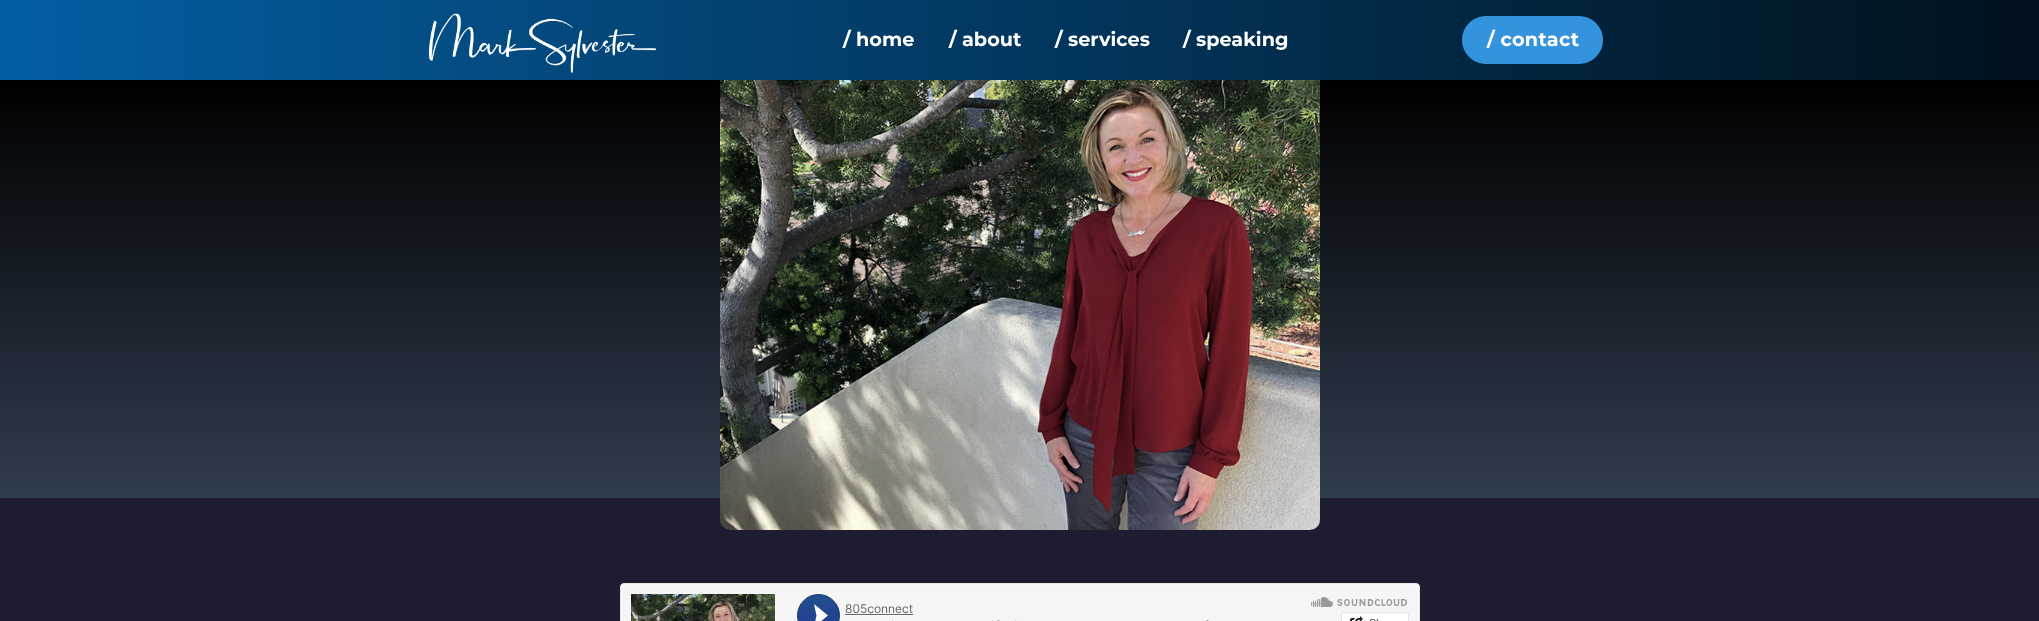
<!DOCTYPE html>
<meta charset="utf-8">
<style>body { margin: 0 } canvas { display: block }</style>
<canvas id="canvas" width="2039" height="621"></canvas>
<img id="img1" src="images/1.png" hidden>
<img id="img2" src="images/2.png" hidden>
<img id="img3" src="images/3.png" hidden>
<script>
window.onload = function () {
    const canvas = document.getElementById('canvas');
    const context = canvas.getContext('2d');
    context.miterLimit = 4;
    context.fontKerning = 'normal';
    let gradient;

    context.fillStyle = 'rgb(30, 28, 48)';
    context.fillRect(0, 0, 2039, 621);
    gradient = context.createLinearGradient(0, 40, 2039, 40);
    gradient.addColorStop(0, 'rgb(4, 94, 162)');
    gradient.addColorStop(1, 'rgb(1, 17, 28)');
    context.fillStyle = gradient;
    context.fillRect(0, 0, 2039, 80);
    context.drawImage(document.getElementById('img1'), 428, 13, 229, 60);
    context.fillStyle = 'rgb(52, 147, 221)';
    context.beginPath();
    context.roundRect(1462, 16, 141, 48, 24);
    context.fill();
    gradient = context.createLinearGradient(1020, 80, 1020, 498);
    gradient.addColorStop(0, 'rgb(0, 0, 0)');
    gradient.addColorStop(1, 'rgb(48, 61, 79)');
    context.fillStyle = gradient;
    context.fillRect(0, 80, 2039, 418);
    context.drawImage(document.getElementById('img2'), 720, 80, 600, 450);
    context.drawImage(document.getElementById('img3'), 620, 583, 800, 38);
    context.font = 'bold 19.25px Montserrat';
    context.fillStyle = 'rgb(255, 255, 255)';
    context.fillText('/ home', 843, 46);
    context.fillText('/ about', 949, 46);
    context.fillText('/ services', 1055, 46);
    context.fillText('/ speaking', 1183, 46);
    context.letterSpacing = '0.25px';
    context.fillText('/ contact', 1487, 46);
};
</script>
